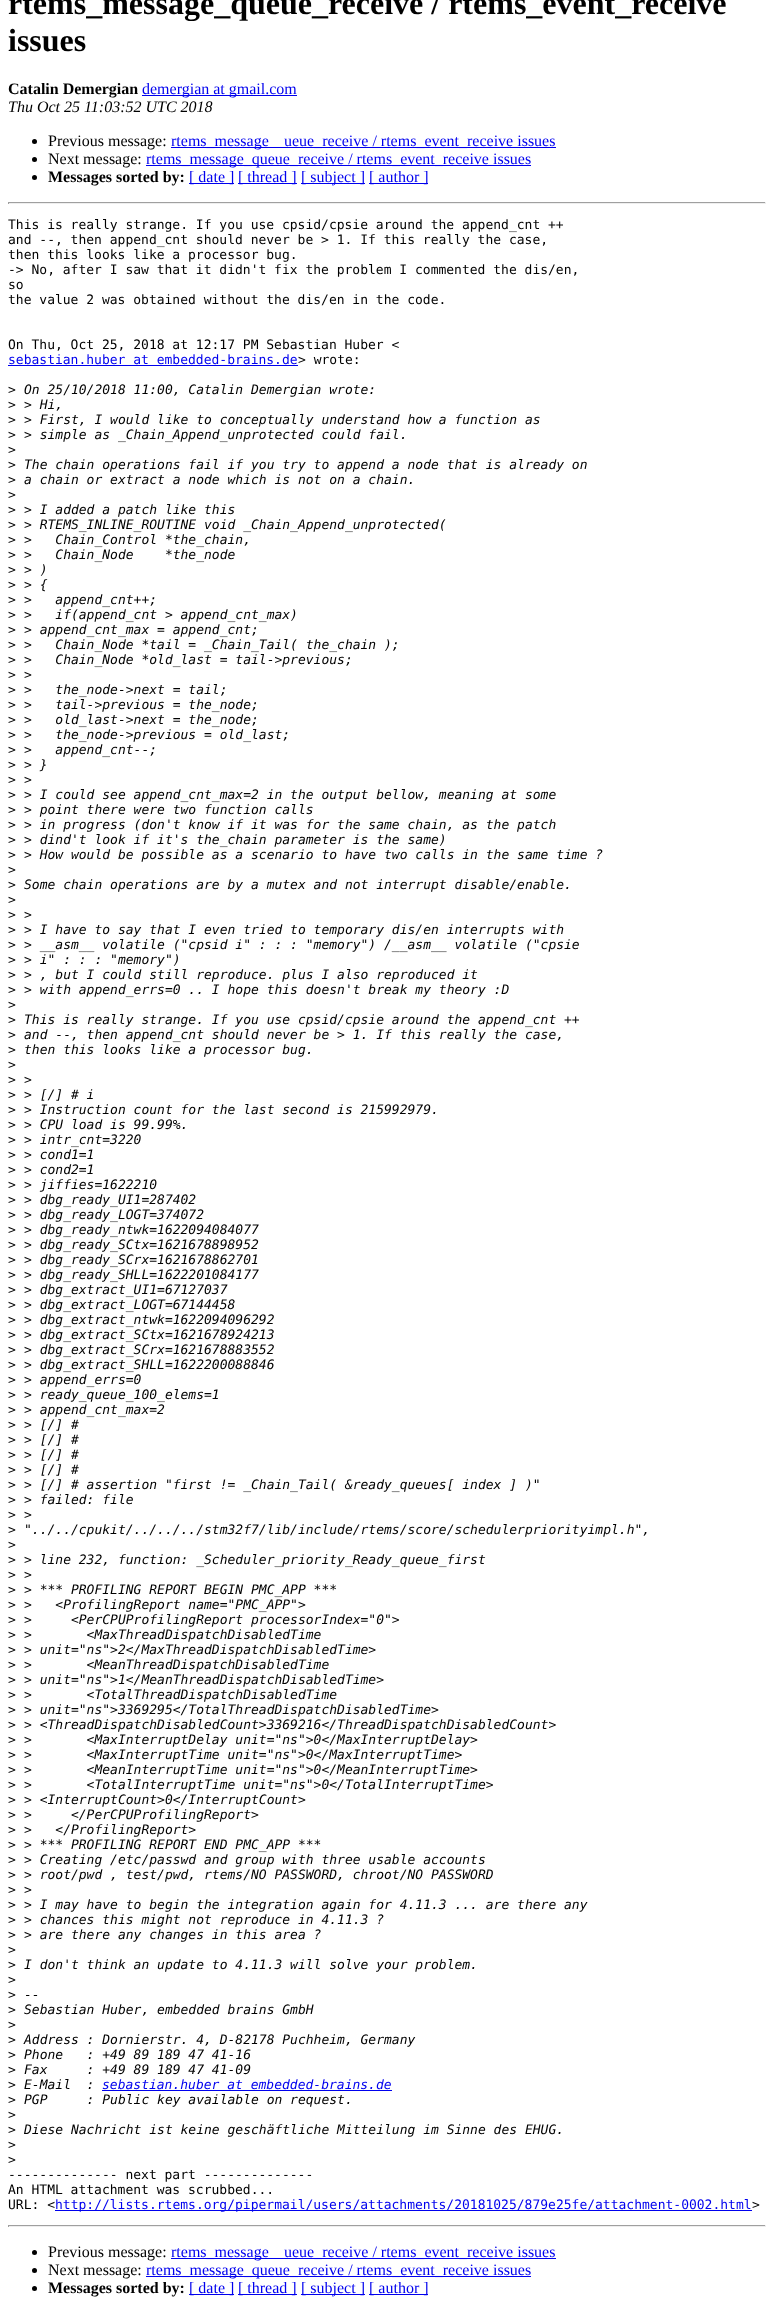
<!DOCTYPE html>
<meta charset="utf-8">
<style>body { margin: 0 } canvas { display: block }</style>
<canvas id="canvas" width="774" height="2297"></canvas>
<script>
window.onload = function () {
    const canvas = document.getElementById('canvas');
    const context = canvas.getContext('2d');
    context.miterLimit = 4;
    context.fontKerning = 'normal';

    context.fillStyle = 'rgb(255, 255, 255)';
    context.fillRect(0, 0, 774, 2297);
    context.fillStyle = 'rgb(0, 0, 238)';
    context.fillRect(142, 95, 155, 1);
    context.fillStyle = 'rgb(0, 0, 0)';
    context.beginPath();
    context.arc(34.5, 141.5, 2.5, 0, 2 * Math.PI);
    context.fill();
    context.fillStyle = 'rgb(0, 0, 238)';
    context.fillRect(171, 147, 385, 1);
    context.fillStyle = 'rgb(0, 0, 0)';
    context.beginPath();
    context.arc(34.5, 159.5, 2.5, 0, 2 * Math.PI);
    context.fill();
    context.fillStyle = 'rgb(0, 0, 238)';
    context.fillRect(146, 165, 385, 1);
    context.fillStyle = 'rgb(0, 0, 0)';
    context.beginPath();
    context.arc(34.5, 177.5, 2.5, 0, 2 * Math.PI);
    context.fill();
    context.fillStyle = 'rgb(0, 0, 238)';
    context.fillRect(189, 183, 45, 1);
    context.fillRect(238, 183, 59, 1);
    context.fillRect(301, 183, 64, 1);
    context.fillRect(369, 183, 59, 1);
    context.fillStyle = 'rgb(159, 159, 159)';
    context.fillRect(8, 202, 758, 1);
    context.fillStyle = 'rgb(238, 238, 238)';
    context.fillRect(765, 202, 1, 2);
    context.fillRect(8, 203, 758, 1);
    context.fillStyle = 'rgb(159, 159, 159)';
    context.fillRect(8, 202, 1, 2);
    context.fillStyle = 'rgb(0, 0, 238)';
    context.fillRect(8, 365, 290, 1);
    context.fillRect(102, 2090, 290, 1);
    context.fillRect(55, 2210, 697, 1);
    context.fillStyle = 'rgb(159, 159, 159)';
    context.fillRect(8, 2225, 758, 1);
    context.fillStyle = 'rgb(238, 238, 238)';
    context.fillRect(765, 2225, 1, 2);
    context.fillRect(8, 2226, 758, 1);
    context.fillStyle = 'rgb(159, 159, 159)';
    context.fillRect(8, 2225, 1, 2);
    context.fillStyle = 'rgb(0, 0, 0)';
    context.beginPath();
    context.arc(34.5, 2252.5, 2.5, 0, 2 * Math.PI);
    context.fill();
    context.fillStyle = 'rgb(0, 0, 238)';
    context.fillRect(171, 2258, 385, 1);
    context.fillStyle = 'rgb(0, 0, 0)';
    context.beginPath();
    context.arc(34.5, 2270.5, 2.5, 0, 2 * Math.PI);
    context.fill();
    context.fillStyle = 'rgb(0, 0, 238)';
    context.fillRect(146, 2276, 385, 1);
    context.fillStyle = 'rgb(0, 0, 0)';
    context.beginPath();
    context.arc(34.5, 2288.5, 2.5, 0, 2 * Math.PI);
    context.fill();
    context.fillStyle = 'rgb(0, 0, 238)';
    context.fillRect(189, 2294, 45, 1);
    context.fillRect(238, 2294, 59, 1);
    context.fillRect(301, 2294, 64, 1);
    context.fillRect(369, 2294, 59, 1);
    context.font = 'bold 32px Liberation Serif';
    context.fillStyle = 'rgb(0, 0, 0)';
    context.fillText('rtems_message_queue_receive / rtems_event_receive', 8, 14);
    context.fillText('issues', 8, 51);
    context.font = 'bold 16px Liberation Serif';
    context.fillText('Catalin Demergian', 8, 94);
    context.font = '16px Liberation Serif';
    context.fillStyle = 'rgb(0, 0, 238)';
    context.fillText('demergian at gmail.com', 142, 94);
    context.font = 'italic 16px Liberation Serif';
    context.fillStyle = 'rgb(0, 0, 0)';
    context.fillText('Thu Oct 25 11:03:52 UTC 2018', 8, 112);
    context.font = '16px Liberation Serif';
    context.fillText('Previous message:', 48, 146);
    context.fillStyle = 'rgb(0, 0, 238)';
    context.fillText('rtems_message', 171, 146);
    context.fillText('ueue_receive / rtems_event_receive issues', 284, 146);
    context.fillStyle = 'rgb(0, 0, 0)';
    context.fillText('Next message:', 48, 164);
    context.fillStyle = 'rgb(0, 0, 238)';
    context.fillText('rtems_message_queue_receive / rtems_event_receive issues', 146, 164);
    context.font = 'bold 16px Liberation Serif';
    context.fillStyle = 'rgb(0, 0, 0)';
    context.fillText('Messages sorted by:', 48, 182);
    context.font = '16px Liberation Serif';
    context.fillStyle = 'rgb(0, 0, 238)';
    context.fillText('[ date ]', 189, 182);
    context.fillText('[ thread ]', 238, 182);
    context.fillText('[ subject ]', 301, 182);
    context.fillText('[ author ]', 369, 182);
    context.font = '13px DejaVu Sans Mono';
    context.fillStyle = 'rgb(0, 0, 0)';
    context.fillText('This is really strange. If you use cpsid/cpsie around the append_cnt ++', 8, 229);
    context.fillText('and --, then append_cnt should never be > 1. If this really the case,', 8, 244);
    context.fillText('then this looks like a processor bug.', 8, 259);
    context.fillText('-> No, after I saw that it didn\'t fix the problem I commented the dis/en,', 8, 274);
    context.fillText('so', 8, 289);
    context.fillText('the value 2 was obtained without the dis/en in the code.', 8, 304);
    context.fillText('On Thu, Oct 25, 2018 at 12:17 PM Sebastian Huber <', 8, 349);
    context.fillStyle = 'rgb(0, 0, 238)';
    context.fillText('sebastian.huber at embedded-brains.de', 8, 364);
    context.fillStyle = 'rgb(0, 0, 0)';
    context.fillText('> wrote:', 298, 364);
    context.fillText('>', 8, 394);
    context.font = 'italic 13px DejaVu Sans Mono';
    context.fillText('On 25/10/2018 11:00, Catalin Demergian wrote:', 24, 394);
    context.font = '13px DejaVu Sans Mono';
    context.fillText('>', 8, 409);
    context.font = 'italic 13px DejaVu Sans Mono';
    context.fillText('> Hi,', 24, 409);
    context.font = '13px DejaVu Sans Mono';
    context.fillText('>', 8, 424);
    context.font = 'italic 13px DejaVu Sans Mono';
    context.fillText('> First, I would like to conceptually understand how a function as', 24, 424);
    context.font = '13px DejaVu Sans Mono';
    context.fillText('>', 8, 439);
    context.font = 'italic 13px DejaVu Sans Mono';
    context.fillText('> simple as _Chain_Append_unprotected could fail.', 24, 439);
    context.font = '13px DejaVu Sans Mono';
    context.fillText('>', 8, 454);
    context.fillText('>', 8, 469);
    context.font = 'italic 13px DejaVu Sans Mono';
    context.fillText('The chain operations fail if you try to append a node that is already on', 24, 469);
    context.font = '13px DejaVu Sans Mono';
    context.fillText('>', 8, 484);
    context.font = 'italic 13px DejaVu Sans Mono';
    context.fillText('a chain or extract a node which is not on a chain.', 24, 484);
    context.font = '13px DejaVu Sans Mono';
    context.fillText('>', 8, 499);
    context.fillText('>', 8, 514);
    context.font = 'italic 13px DejaVu Sans Mono';
    context.fillText('> I added a patch like this', 24, 514);
    context.font = '13px DejaVu Sans Mono';
    context.fillText('>', 8, 529);
    context.font = 'italic 13px DejaVu Sans Mono';
    context.fillText('> RTEMS_INLINE_ROUTINE void _Chain_Append_unprotected(', 24, 529);
    context.font = '13px DejaVu Sans Mono';
    context.fillText('>', 8, 544);
    context.font = 'italic 13px DejaVu Sans Mono';
    context.fillText('>   Chain_Control *the_chain,', 24, 544);
    context.font = '13px DejaVu Sans Mono';
    context.fillText('>', 8, 559);
    context.font = 'italic 13px DejaVu Sans Mono';
    context.fillText('>   Chain_Node    *the_node', 24, 559);
    context.font = '13px DejaVu Sans Mono';
    context.fillText('>', 8, 574);
    context.font = 'italic 13px DejaVu Sans Mono';
    context.fillText('> )', 24, 574);
    context.font = '13px DejaVu Sans Mono';
    context.fillText('>', 8, 589);
    context.font = 'italic 13px DejaVu Sans Mono';
    context.fillText('> {', 24, 589);
    context.font = '13px DejaVu Sans Mono';
    context.fillText('>', 8, 604);
    context.font = 'italic 13px DejaVu Sans Mono';
    context.fillText('>   append_cnt++;', 24, 604);
    context.font = '13px DejaVu Sans Mono';
    context.fillText('>', 8, 619);
    context.font = 'italic 13px DejaVu Sans Mono';
    context.fillText('>   if(append_cnt > append_cnt_max)', 24, 619);
    context.font = '13px DejaVu Sans Mono';
    context.fillText('>', 8, 634);
    context.font = 'italic 13px DejaVu Sans Mono';
    context.fillText('> append_cnt_max = append_cnt;', 24, 634);
    context.font = '13px DejaVu Sans Mono';
    context.fillText('>', 8, 649);
    context.font = 'italic 13px DejaVu Sans Mono';
    context.fillText('>   Chain_Node *tail = _Chain_Tail( the_chain );', 24, 649);
    context.font = '13px DejaVu Sans Mono';
    context.fillText('>', 8, 664);
    context.font = 'italic 13px DejaVu Sans Mono';
    context.fillText('>   Chain_Node *old_last = tail->previous;', 24, 664);
    context.font = '13px DejaVu Sans Mono';
    context.fillText('>', 8, 679);
    context.font = 'italic 13px DejaVu Sans Mono';
    context.fillText('>', 24, 679);
    context.font = '13px DejaVu Sans Mono';
    context.fillText('>', 8, 694);
    context.font = 'italic 13px DejaVu Sans Mono';
    context.fillText('>   the_node->next = tail;', 24, 694);
    context.font = '13px DejaVu Sans Mono';
    context.fillText('>', 8, 709);
    context.font = 'italic 13px DejaVu Sans Mono';
    context.fillText('>   tail->previous = the_node;', 24, 709);
    context.font = '13px DejaVu Sans Mono';
    context.fillText('>', 8, 724);
    context.font = 'italic 13px DejaVu Sans Mono';
    context.fillText('>   old_last->next = the_node;', 24, 724);
    context.font = '13px DejaVu Sans Mono';
    context.fillText('>', 8, 739);
    context.font = 'italic 13px DejaVu Sans Mono';
    context.fillText('>   the_node->previous = old_last;', 24, 739);
    context.font = '13px DejaVu Sans Mono';
    context.fillText('>', 8, 754);
    context.font = 'italic 13px DejaVu Sans Mono';
    context.fillText('>   append_cnt--;', 24, 754);
    context.font = '13px DejaVu Sans Mono';
    context.fillText('>', 8, 769);
    context.font = 'italic 13px DejaVu Sans Mono';
    context.fillText('> }', 24, 769);
    context.font = '13px DejaVu Sans Mono';
    context.fillText('>', 8, 784);
    context.font = 'italic 13px DejaVu Sans Mono';
    context.fillText('>', 24, 784);
    context.font = '13px DejaVu Sans Mono';
    context.fillText('>', 8, 799);
    context.font = 'italic 13px DejaVu Sans Mono';
    context.fillText('> I could see append_cnt_max=2 in the output bellow, meaning at some', 24, 799);
    context.font = '13px DejaVu Sans Mono';
    context.fillText('>', 8, 814);
    context.font = 'italic 13px DejaVu Sans Mono';
    context.fillText('> point there were two function calls', 24, 814);
    context.font = '13px DejaVu Sans Mono';
    context.fillText('>', 8, 829);
    context.font = 'italic 13px DejaVu Sans Mono';
    context.fillText('> in progress (don\'t know if it was for the same chain, as the patch', 24, 829);
    context.font = '13px DejaVu Sans Mono';
    context.fillText('>', 8, 844);
    context.font = 'italic 13px DejaVu Sans Mono';
    context.fillText('> dind\'t look if it\'s the_chain parameter is the same)', 24, 844);
    context.font = '13px DejaVu Sans Mono';
    context.fillText('>', 8, 859);
    context.font = 'italic 13px DejaVu Sans Mono';
    context.fillText('> How would be possible as a scenario to have two calls in the same time ?', 24, 859);
    context.font = '13px DejaVu Sans Mono';
    context.fillText('>', 8, 874);
    context.fillText('>', 8, 889);
    context.font = 'italic 13px DejaVu Sans Mono';
    context.fillText('Some chain operations are by a mutex and not interrupt disable/enable.', 24, 889);
    context.font = '13px DejaVu Sans Mono';
    context.fillText('>', 8, 904);
    context.fillText('>', 8, 919);
    context.font = 'italic 13px DejaVu Sans Mono';
    context.fillText('>', 24, 919);
    context.font = '13px DejaVu Sans Mono';
    context.fillText('>', 8, 934);
    context.font = 'italic 13px DejaVu Sans Mono';
    context.fillText('> I have to say that I even tried to temporary dis/en interrupts with', 24, 934);
    context.font = '13px DejaVu Sans Mono';
    context.fillText('>', 8, 949);
    context.font = 'italic 13px DejaVu Sans Mono';
    context.fillText('> __asm__ volatile ("cpsid i" : : : "memory") /__asm__ volatile ("cpsie', 24, 949);
    context.font = '13px DejaVu Sans Mono';
    context.fillText('>', 8, 964);
    context.font = 'italic 13px DejaVu Sans Mono';
    context.fillText('> i" : : : "memory")', 24, 964);
    context.font = '13px DejaVu Sans Mono';
    context.fillText('>', 8, 979);
    context.font = 'italic 13px DejaVu Sans Mono';
    context.fillText('> , but I could still reproduce. plus I also reproduced it', 24, 979);
    context.font = '13px DejaVu Sans Mono';
    context.fillText('>', 8, 994);
    context.font = 'italic 13px DejaVu Sans Mono';
    context.fillText('> with append_errs=0 .. I hope this doesn\'t break my theory :D', 24, 994);
    context.font = '13px DejaVu Sans Mono';
    context.fillText('>', 8, 1009);
    context.fillText('>', 8, 1024);
    context.font = 'italic 13px DejaVu Sans Mono';
    context.fillText('This is really strange. If you use cpsid/cpsie around the append_cnt ++', 24, 1024);
    context.font = '13px DejaVu Sans Mono';
    context.fillText('>', 8, 1039);
    context.font = 'italic 13px DejaVu Sans Mono';
    context.fillText('and --, then append_cnt should never be > 1. If this really the case,', 24, 1039);
    context.font = '13px DejaVu Sans Mono';
    context.fillText('>', 8, 1054);
    context.font = 'italic 13px DejaVu Sans Mono';
    context.fillText('then this looks like a processor bug.', 24, 1054);
    context.font = '13px DejaVu Sans Mono';
    context.fillText('>', 8, 1069);
    context.fillText('>', 8, 1084);
    context.font = 'italic 13px DejaVu Sans Mono';
    context.fillText('>', 24, 1084);
    context.font = '13px DejaVu Sans Mono';
    context.fillText('>', 8, 1099);
    context.font = 'italic 13px DejaVu Sans Mono';
    context.fillText('> [/] # i', 24, 1099);
    context.font = '13px DejaVu Sans Mono';
    context.fillText('>', 8, 1114);
    context.font = 'italic 13px DejaVu Sans Mono';
    context.fillText('> Instruction count for the last second is 215992979.', 24, 1114);
    context.font = '13px DejaVu Sans Mono';
    context.fillText('>', 8, 1129);
    context.font = 'italic 13px DejaVu Sans Mono';
    context.fillText('> CPU load is 99.99%.', 24, 1129);
    context.font = '13px DejaVu Sans Mono';
    context.fillText('>', 8, 1144);
    context.font = 'italic 13px DejaVu Sans Mono';
    context.fillText('> intr_cnt=3220', 24, 1144);
    context.font = '13px DejaVu Sans Mono';
    context.fillText('>', 8, 1159);
    context.font = 'italic 13px DejaVu Sans Mono';
    context.fillText('> cond1=1', 24, 1159);
    context.font = '13px DejaVu Sans Mono';
    context.fillText('>', 8, 1174);
    context.font = 'italic 13px DejaVu Sans Mono';
    context.fillText('> cond2=1', 24, 1174);
    context.font = '13px DejaVu Sans Mono';
    context.fillText('>', 8, 1189);
    context.font = 'italic 13px DejaVu Sans Mono';
    context.fillText('> jiffies=1622210', 24, 1189);
    context.font = '13px DejaVu Sans Mono';
    context.fillText('>', 8, 1204);
    context.font = 'italic 13px DejaVu Sans Mono';
    context.fillText('> dbg_ready_UI1=287402', 24, 1204);
    context.font = '13px DejaVu Sans Mono';
    context.fillText('>', 8, 1219);
    context.font = 'italic 13px DejaVu Sans Mono';
    context.fillText('> dbg_ready_LOGT=374072', 24, 1219);
    context.font = '13px DejaVu Sans Mono';
    context.fillText('>', 8, 1234);
    context.font = 'italic 13px DejaVu Sans Mono';
    context.fillText('> dbg_ready_ntwk=1622094084077', 24, 1234);
    context.font = '13px DejaVu Sans Mono';
    context.fillText('>', 8, 1249);
    context.font = 'italic 13px DejaVu Sans Mono';
    context.fillText('> dbg_ready_SCtx=1621678898952', 24, 1249);
    context.font = '13px DejaVu Sans Mono';
    context.fillText('>', 8, 1264);
    context.font = 'italic 13px DejaVu Sans Mono';
    context.fillText('> dbg_ready_SCrx=1621678862701', 24, 1264);
    context.font = '13px DejaVu Sans Mono';
    context.fillText('>', 8, 1279);
    context.font = 'italic 13px DejaVu Sans Mono';
    context.fillText('> dbg_ready_SHLL=1622201084177', 24, 1279);
    context.font = '13px DejaVu Sans Mono';
    context.fillText('>', 8, 1294);
    context.font = 'italic 13px DejaVu Sans Mono';
    context.fillText('> dbg_extract_UI1=67127037', 24, 1294);
    context.font = '13px DejaVu Sans Mono';
    context.fillText('>', 8, 1309);
    context.font = 'italic 13px DejaVu Sans Mono';
    context.fillText('> dbg_extract_LOGT=67144458', 24, 1309);
    context.font = '13px DejaVu Sans Mono';
    context.fillText('>', 8, 1324);
    context.font = 'italic 13px DejaVu Sans Mono';
    context.fillText('> dbg_extract_ntwk=1622094096292', 24, 1324);
    context.font = '13px DejaVu Sans Mono';
    context.fillText('>', 8, 1339);
    context.font = 'italic 13px DejaVu Sans Mono';
    context.fillText('> dbg_extract_SCtx=1621678924213', 24, 1339);
    context.font = '13px DejaVu Sans Mono';
    context.fillText('>', 8, 1354);
    context.font = 'italic 13px DejaVu Sans Mono';
    context.fillText('> dbg_extract_SCrx=1621678883552', 24, 1354);
    context.font = '13px DejaVu Sans Mono';
    context.fillText('>', 8, 1369);
    context.font = 'italic 13px DejaVu Sans Mono';
    context.fillText('> dbg_extract_SHLL=1622200088846', 24, 1369);
    context.font = '13px DejaVu Sans Mono';
    context.fillText('>', 8, 1384);
    context.font = 'italic 13px DejaVu Sans Mono';
    context.fillText('> append_errs=0', 24, 1384);
    context.font = '13px DejaVu Sans Mono';
    context.fillText('>', 8, 1399);
    context.font = 'italic 13px DejaVu Sans Mono';
    context.fillText('> ready_queue_100_elems=1', 24, 1399);
    context.font = '13px DejaVu Sans Mono';
    context.fillText('>', 8, 1414);
    context.font = 'italic 13px DejaVu Sans Mono';
    context.fillText('> append_cnt_max=2', 24, 1414);
    context.font = '13px DejaVu Sans Mono';
    context.fillText('>', 8, 1429);
    context.font = 'italic 13px DejaVu Sans Mono';
    context.fillText('> [/] #', 24, 1429);
    context.font = '13px DejaVu Sans Mono';
    context.fillText('>', 8, 1444);
    context.font = 'italic 13px DejaVu Sans Mono';
    context.fillText('> [/] #', 24, 1444);
    context.font = '13px DejaVu Sans Mono';
    context.fillText('>', 8, 1459);
    context.font = 'italic 13px DejaVu Sans Mono';
    context.fillText('> [/] #', 24, 1459);
    context.font = '13px DejaVu Sans Mono';
    context.fillText('>', 8, 1474);
    context.font = 'italic 13px DejaVu Sans Mono';
    context.fillText('> [/] #', 24, 1474);
    context.font = '13px DejaVu Sans Mono';
    context.fillText('>', 8, 1489);
    context.font = 'italic 13px DejaVu Sans Mono';
    context.fillText('> [/] # assertion "first != _Chain_Tail( &ready_queues[ index ] )"', 24, 1489);
    context.font = '13px DejaVu Sans Mono';
    context.fillText('>', 8, 1504);
    context.font = 'italic 13px DejaVu Sans Mono';
    context.fillText('> failed: file', 24, 1504);
    context.font = '13px DejaVu Sans Mono';
    context.fillText('>', 8, 1519);
    context.font = 'italic 13px DejaVu Sans Mono';
    context.fillText('>', 24, 1519);
    context.font = '13px DejaVu Sans Mono';
    context.fillText('>', 8, 1534);
    context.font = 'italic 13px DejaVu Sans Mono';
    context.fillText('"../../cpukit/../../../stm32f7/lib/include/rtems/score/schedulerpriorityimpl.h",', 24, 1534);
    context.font = '13px DejaVu Sans Mono';
    context.fillText('>', 8, 1549);
    context.fillText('>', 8, 1564);
    context.font = 'italic 13px DejaVu Sans Mono';
    context.fillText('> line 232, function: _Scheduler_priority_Ready_queue_first', 24, 1564);
    context.font = '13px DejaVu Sans Mono';
    context.fillText('>', 8, 1579);
    context.font = 'italic 13px DejaVu Sans Mono';
    context.fillText('>', 24, 1579);
    context.font = '13px DejaVu Sans Mono';
    context.fillText('>', 8, 1594);
    context.font = 'italic 13px DejaVu Sans Mono';
    context.fillText('> *** PROFILING REPORT BEGIN PMC_APP ***', 24, 1594);
    context.font = '13px DejaVu Sans Mono';
    context.fillText('>', 8, 1609);
    context.font = 'italic 13px DejaVu Sans Mono';
    context.fillText('>   <ProfilingReport name="PMC_APP">', 24, 1609);
    context.font = '13px DejaVu Sans Mono';
    context.fillText('>', 8, 1624);
    context.font = 'italic 13px DejaVu Sans Mono';
    context.fillText('>     <PerCPUProfilingReport processorIndex="0">', 24, 1624);
    context.font = '13px DejaVu Sans Mono';
    context.fillText('>', 8, 1639);
    context.font = 'italic 13px DejaVu Sans Mono';
    context.fillText('>       <MaxThreadDispatchDisabledTime', 24, 1639);
    context.font = '13px DejaVu Sans Mono';
    context.fillText('>', 8, 1654);
    context.font = 'italic 13px DejaVu Sans Mono';
    context.fillText('> unit="ns">2<\/MaxThreadDispatchDisabledTime>', 24, 1654);
    context.font = '13px DejaVu Sans Mono';
    context.fillText('>', 8, 1669);
    context.font = 'italic 13px DejaVu Sans Mono';
    context.fillText('>       <MeanThreadDispatchDisabledTime', 24, 1669);
    context.font = '13px DejaVu Sans Mono';
    context.fillText('>', 8, 1684);
    context.font = 'italic 13px DejaVu Sans Mono';
    context.fillText('> unit="ns">1<\/MeanThreadDispatchDisabledTime>', 24, 1684);
    context.font = '13px DejaVu Sans Mono';
    context.fillText('>', 8, 1699);
    context.font = 'italic 13px DejaVu Sans Mono';
    context.fillText('>       <TotalThreadDispatchDisabledTime', 24, 1699);
    context.font = '13px DejaVu Sans Mono';
    context.fillText('>', 8, 1714);
    context.font = 'italic 13px DejaVu Sans Mono';
    context.fillText('> unit="ns">3369295<\/TotalThreadDispatchDisabledTime>', 24, 1714);
    context.font = '13px DejaVu Sans Mono';
    context.fillText('>', 8, 1729);
    context.font = 'italic 13px DejaVu Sans Mono';
    context.fillText('> <ThreadDispatchDisabledCount>3369216<\/ThreadDispatchDisabledCount>', 24, 1729);
    context.font = '13px DejaVu Sans Mono';
    context.fillText('>', 8, 1744);
    context.font = 'italic 13px DejaVu Sans Mono';
    context.fillText('>       <MaxInterruptDelay unit="ns">0<\/MaxInterruptDelay>', 24, 1744);
    context.font = '13px DejaVu Sans Mono';
    context.fillText('>', 8, 1759);
    context.font = 'italic 13px DejaVu Sans Mono';
    context.fillText('>       <MaxInterruptTime unit="ns">0<\/MaxInterruptTime>', 24, 1759);
    context.font = '13px DejaVu Sans Mono';
    context.fillText('>', 8, 1774);
    context.font = 'italic 13px DejaVu Sans Mono';
    context.fillText('>       <MeanInterruptTime unit="ns">0<\/MeanInterruptTime>', 24, 1774);
    context.font = '13px DejaVu Sans Mono';
    context.fillText('>', 8, 1789);
    context.font = 'italic 13px DejaVu Sans Mono';
    context.fillText('>       <TotalInterruptTime unit="ns">0<\/TotalInterruptTime>', 24, 1789);
    context.font = '13px DejaVu Sans Mono';
    context.fillText('>', 8, 1804);
    context.font = 'italic 13px DejaVu Sans Mono';
    context.fillText('> <InterruptCount>0<\/InterruptCount>', 24, 1804);
    context.font = '13px DejaVu Sans Mono';
    context.fillText('>', 8, 1819);
    context.font = 'italic 13px DejaVu Sans Mono';
    context.fillText('>     <\/PerCPUProfilingReport>', 24, 1819);
    context.font = '13px DejaVu Sans Mono';
    context.fillText('>', 8, 1834);
    context.font = 'italic 13px DejaVu Sans Mono';
    context.fillText('>   <\/ProfilingReport>', 24, 1834);
    context.font = '13px DejaVu Sans Mono';
    context.fillText('>', 8, 1849);
    context.font = 'italic 13px DejaVu Sans Mono';
    context.fillText('> *** PROFILING REPORT END PMC_APP ***', 24, 1849);
    context.font = '13px DejaVu Sans Mono';
    context.fillText('>', 8, 1864);
    context.font = 'italic 13px DejaVu Sans Mono';
    context.fillText('> Creating /etc/passwd and group with three usable accounts', 24, 1864);
    context.font = '13px DejaVu Sans Mono';
    context.fillText('>', 8, 1879);
    context.font = 'italic 13px DejaVu Sans Mono';
    context.fillText('> root/pwd , test/pwd, rtems/NO PASSWORD, chroot/NO PASSWORD', 24, 1879);
    context.font = '13px DejaVu Sans Mono';
    context.fillText('>', 8, 1894);
    context.font = 'italic 13px DejaVu Sans Mono';
    context.fillText('>', 24, 1894);
    context.font = '13px DejaVu Sans Mono';
    context.fillText('>', 8, 1909);
    context.font = 'italic 13px DejaVu Sans Mono';
    context.fillText('> I may have to begin the integration again for 4.11.3 ... are there any', 24, 1909);
    context.font = '13px DejaVu Sans Mono';
    context.fillText('>', 8, 1924);
    context.font = 'italic 13px DejaVu Sans Mono';
    context.fillText('> chances this might not reproduce in 4.11.3 ?', 24, 1924);
    context.font = '13px DejaVu Sans Mono';
    context.fillText('>', 8, 1939);
    context.font = 'italic 13px DejaVu Sans Mono';
    context.fillText('> are there any changes in this area ?', 24, 1939);
    context.font = '13px DejaVu Sans Mono';
    context.fillText('>', 8, 1954);
    context.fillText('>', 8, 1969);
    context.font = 'italic 13px DejaVu Sans Mono';
    context.fillText('I don\'t think an update to 4.11.3 will solve your problem.', 24, 1969);
    context.font = '13px DejaVu Sans Mono';
    context.fillText('>', 8, 1984);
    context.fillText('>', 8, 1999);
    context.font = 'italic 13px DejaVu Sans Mono';
    context.fillText('--', 24, 1999);
    context.font = '13px DejaVu Sans Mono';
    context.fillText('>', 8, 2014);
    context.font = 'italic 13px DejaVu Sans Mono';
    context.fillText('Sebastian Huber, embedded brains GmbH', 24, 2014);
    context.font = '13px DejaVu Sans Mono';
    context.fillText('>', 8, 2029);
    context.fillText('>', 8, 2044);
    context.font = 'italic 13px DejaVu Sans Mono';
    context.fillText('Address : Dornierstr. 4, D-82178 Puchheim, Germany', 24, 2044);
    context.font = '13px DejaVu Sans Mono';
    context.fillText('>', 8, 2059);
    context.font = 'italic 13px DejaVu Sans Mono';
    context.fillText('Phone   : +49 89 189 47 41-16', 24, 2059);
    context.font = '13px DejaVu Sans Mono';
    context.fillText('>', 8, 2074);
    context.font = 'italic 13px DejaVu Sans Mono';
    context.fillText('Fax     : +49 89 189 47 41-09', 24, 2074);
    context.font = '13px DejaVu Sans Mono';
    context.fillText('>', 8, 2089);
    context.font = 'italic 13px DejaVu Sans Mono';
    context.fillText('E-Mail  :', 24, 2089);
    context.fillStyle = 'rgb(0, 0, 238)';
    context.fillText('sebastian.huber at embedded-brains.de', 102, 2089);
    context.font = '13px DejaVu Sans Mono';
    context.fillStyle = 'rgb(0, 0, 0)';
    context.fillText('>', 8, 2104);
    context.font = 'italic 13px DejaVu Sans Mono';
    context.fillText('PGP     : Public key available on request.', 24, 2104);
    context.font = '13px DejaVu Sans Mono';
    context.fillText('>', 8, 2119);
    context.fillText('>', 8, 2134);
    context.font = 'italic 13px DejaVu Sans Mono';
    context.fillText('Diese Nachricht ist keine geschäftliche Mitteilung im Sinne des EHUG.', 24, 2134);
    context.font = '13px DejaVu Sans Mono';
    context.fillText('>', 8, 2149);
    context.fillText('>', 8, 2164);
    context.fillText('-------------- next part --------------', 8, 2179);
    context.fillText('An HTML attachment was scrubbed...', 8, 2194);
    context.fillText('URL: <', 8, 2209);
    context.fillStyle = 'rgb(0, 0, 238)';
    context.fillText('http://lists.rtems.org/pipermail/users/attachments/20181025/879e25fe/attachment-0002.html', 55, 2209);
    context.fillStyle = 'rgb(0, 0, 0)';
    context.fillText('>', 752, 2209);
    context.font = '16px Liberation Serif';
    context.fillText('Previous message:', 48, 2257);
    context.fillStyle = 'rgb(0, 0, 238)';
    context.fillText('rtems_message', 171, 2257);
    context.fillText('ueue_receive / rtems_event_receive issues', 284, 2257);
    context.fillStyle = 'rgb(0, 0, 0)';
    context.fillText('Next message:', 48, 2275);
    context.fillStyle = 'rgb(0, 0, 238)';
    context.fillText('rtems_message_queue_receive / rtems_event_receive issues', 146, 2275);
    context.font = 'bold 16px Liberation Serif';
    context.fillStyle = 'rgb(0, 0, 0)';
    context.fillText('Messages sorted by:', 48, 2293);
    context.font = '16px Liberation Serif';
    context.fillStyle = 'rgb(0, 0, 238)';
    context.fillText('[ date ]', 189, 2293);
    context.fillText('[ thread ]', 238, 2293);
    context.fillText('[ subject ]', 301, 2293);
    context.fillText('[ author ]', 369, 2293);
};
</script>
